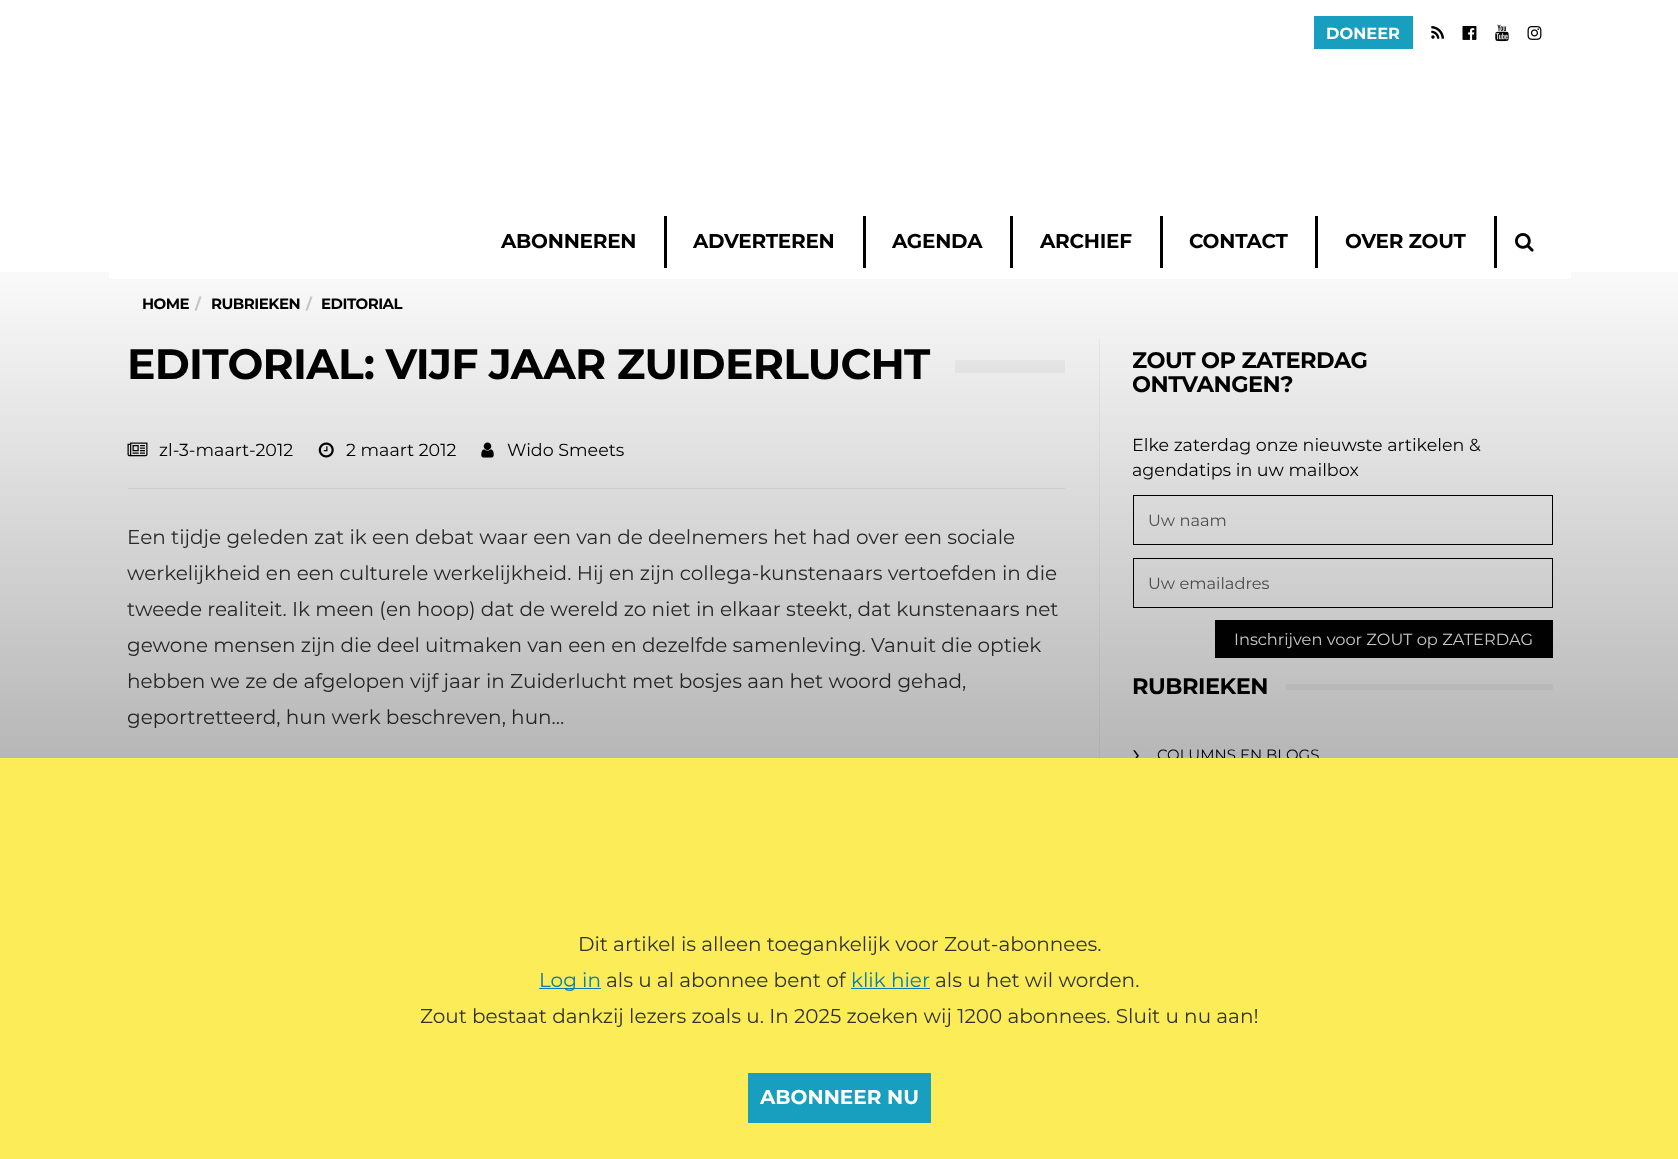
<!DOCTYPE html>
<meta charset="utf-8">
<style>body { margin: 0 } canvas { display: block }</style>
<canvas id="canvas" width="1678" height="1159"></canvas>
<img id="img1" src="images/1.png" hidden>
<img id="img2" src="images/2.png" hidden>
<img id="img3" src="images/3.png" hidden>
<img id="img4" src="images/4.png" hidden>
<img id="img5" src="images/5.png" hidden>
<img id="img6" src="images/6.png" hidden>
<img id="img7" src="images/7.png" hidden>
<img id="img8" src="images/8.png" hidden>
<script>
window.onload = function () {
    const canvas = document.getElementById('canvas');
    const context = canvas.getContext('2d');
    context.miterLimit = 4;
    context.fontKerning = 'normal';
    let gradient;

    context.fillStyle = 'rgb(255, 255, 255)';
    context.fillRect(0, 0, 1678, 1159);
    context.fillStyle = 'rgb(24, 158, 191)';
    context.fillRect(1314, 16, 99, 33);
    context.drawImage(document.getElementById('img1'), 1431, 26, 13, 13);
    context.drawImage(document.getElementById('img2'), 1462, 26, 15, 14);
    context.drawImage(document.getElementById('img3'), 1495, 24, 14, 18);
    context.drawImage(document.getElementById('img4'), 1527, 26, 15, 14);
    context.fillStyle = 'rgb(1, 1, 1)';
    context.fillRect(664, 216, 3, 52);
    context.fillRect(863, 216, 3, 52);
    context.fillRect(1010, 216, 3, 52);
    context.fillRect(1160, 216, 3, 52);
    context.fillRect(1315, 216, 3, 52);
    context.fillRect(1494, 216, 3, 52);
    context.drawImage(document.getElementById('img5'), 1515, 233, 19, 19);
    context.fillStyle = 'rgb(243, 243, 243)';
    context.fillRect(1099, 339, 1, 419);
    context.fillStyle = 'rgb(245, 245, 245)';
    context.fillRect(955, 360, 110, 13);
    context.drawImage(document.getElementById('img6'), 127, 442, 21, 15);
    context.drawImage(document.getElementById('img7'), 318, 442, 16, 16);
    context.drawImage(document.getElementById('img8'), 481, 442, 13, 16);
    context.fillStyle = 'rgb(238, 238, 238)';
    context.fillRect(128, 488, 937, 1);
    context.strokeStyle = 'rgb(1, 1, 1)';
    context.strokeRect(1133.5, 495.5, 419, 49);
    context.strokeRect(1133.5, 558.5, 419, 49);
    context.fillStyle = 'rgb(1, 1, 1)';
    context.fillRect(1215, 620, 338, 38);
    context.fillStyle = 'rgb(245, 245, 245)';
    context.fillRect(1286, 684, 267, 6);
    context.font = 'bold 16.25px Montserrat';
    context.fillStyle = 'rgb(255, 255, 255)';
    context.fillText('DONEER', 1326, 39);
    context.letterSpacing = '-0.25px';
    context.font = 'bold 20px Montserrat';
    context.fillStyle = 'rgb(1, 1, 1)';
    context.fillText('ABONNEREN', 501, 248);
    context.fillText('ADVERTEREN', 693, 248);
    context.fillText('AGENDA', 892, 248);
    context.fillText('ARCHIEF', 1040, 248);
    context.fillText('CONTACT', 1189, 248);
    context.fillText('OVER ZOUT', 1345, 248);
    context.letterSpacing = '-0.5px';
    context.font = 'bold 15px Montserrat';
    context.fillText('HOME', 142, 309);
    context.fillStyle = 'rgb(204, 204, 204)';
    context.fillText('/', 195, 309);
    context.fillStyle = 'rgb(1, 1, 1)';
    context.fillText('RUBRIEKEN', 211, 309);
    context.fillStyle = 'rgb(204, 204, 204)';
    context.fillText('/', 306, 309);
    context.fillStyle = 'rgb(1, 1, 1)';
    context.fillText('EDITORIAL', 321, 309);
    context.letterSpacing = '-0.75px';
    context.font = 'bold 42.5px Montserrat';
    context.fillText('EDITORIAL: VIJF JAAR ZUIDERLUCHT', 127, 379);
    context.letterSpacing = '0px';
    context.font = '17.5px Montserrat';
    context.fillText('zl-3-maart-2012', 159, 456);
    context.fillText('2 maart 2012', 346, 456);
    context.fillText('Wido Smeets', 507, 456);
    context.font = '20px Montserrat';
    context.fillStyle = 'rgb(49, 49, 49)';
    context.fillText('Een tijdje geleden zat ik een debat waar een van de deelnemers het had over een sociale', 127, 544);
    context.fillText('werkelijkheid en een culturele werkelijkheid. Hij en zijn collega-kunstenaars vertoefden in die', 127, 580);
    context.fillText('tweede realiteit. Ik meen (en hoop) dat de wereld zo niet in elkaar steekt, dat kunstenaars net', 127, 616);
    context.fillText('gewone mensen zijn die deel uitmaken van een en dezelfde samenleving. Vanuit die optiek', 127, 652);
    context.fillText('hebben we ze de afgelopen vijf jaar in Zuiderlucht met bosjes aan het woord gehad,', 127, 688);
    context.fillText('geportretteerd, hun werk beschreven, hun...', 127, 724);
    context.save();
    context.beginPath();
    context.rect(1133, 339, 420, 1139);
    context.clip();
    context.letterSpacing = '-0.5px';
    context.font = 'bold 22.5px Montserrat';
    context.fillStyle = 'rgb(1, 1, 1)';
    context.fillText('ZOUT OP ZATERDAG', 1132, 368);
    context.fillText('ONTVANGEN?', 1132, 392);
    context.restore();
    context.font = '17.5px Montserrat';
    context.fillStyle = 'rgb(1, 1, 1)';
    context.fillText('Elke zaterdag onze nieuwste artikelen &', 1132, 451);
    context.fillText('agendatips in uw mailbox', 1132, 476);
    context.font = '16.25px Montserrat';
    context.fillStyle = 'rgb(91, 91, 91)';
    context.fillText('Uw naam', 1148, 526);
    context.fillText('Uw emailadres', 1148, 589);
    context.fillStyle = 'rgb(255, 255, 255)';
    context.fillText('Inschrijven voor ZOUT op ZATERDAG', 1234, 645);
    context.letterSpacing = '-0.5px';
    context.font = 'bold 22.5px Montserrat';
    context.fillStyle = 'rgb(1, 1, 1)';
    context.fillText('RUBRIEKEN', 1132, 694);
    context.letterSpacing = '0px';
    context.font = '28px Montserrat';
    context.fillText('›', 1132, 763);
    context.font = '15px Montserrat';
    context.fillText('COLUMNS EN BLOGS', 1157, 760);
    gradient = context.createLinearGradient(839, 0, 839, 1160);
    gradient.addColorStop(0, 'rgba(0, 0, 0, 0)');
    gradient.addColorStop(0.2, 'rgba(0, 0, 0, 0)');
    gradient.addColorStop(1, 'rgba(0, 0, 0, 0.5)');
    context.fillStyle = gradient;
    context.fillRect(0, 272, 1678, 486);
    context.fillStyle = 'rgb(255, 255, 255)';
    context.fillRect(109, 272, 1462, 7);
    context.fillStyle = 'rgb(252, 237, 88)';
    context.fillRect(0, 758, 1678, 401);
    context.fillStyle = 'rgb(24, 158, 191)';
    context.fillRect(748, 1073, 183, 50);
    context.font = 'bold 20px Montserrat';
    context.fillStyle = 'rgb(255, 255, 255)';
    context.fillText('ABONNEER NU', 760, 1104);
    context.font = '20px Montserrat';
    context.fillStyle = 'rgb(49, 49, 49)';
    context.fillText('Zout bestaat dankzij lezers zoals u. In 2025 zoeken wij 1200 abonnees. Sluit u nu aan!', 420, 1023);
    context.fillText('als u het wil worden.', 935, 987);
    context.fillStyle = 'rgb(9, 123, 172)';
    context.fillText('klik hier', 851, 987);
    context.fillRect(851, 988, 79, 1);
    context.fillStyle = 'rgb(49, 49, 49)';
    context.fillText('als u al abonnee bent of', 606, 987);
    context.fillStyle = 'rgb(9, 123, 172)';
    context.fillRect(539, 988, 62, 1);
    context.fillText('Log in', 539, 987);
    context.fillStyle = 'rgb(49, 49, 49)';
    context.fillText('Dit artikel is alleen toegankelijk voor Zout-abonnees.', 578, 951);
};
</script>
